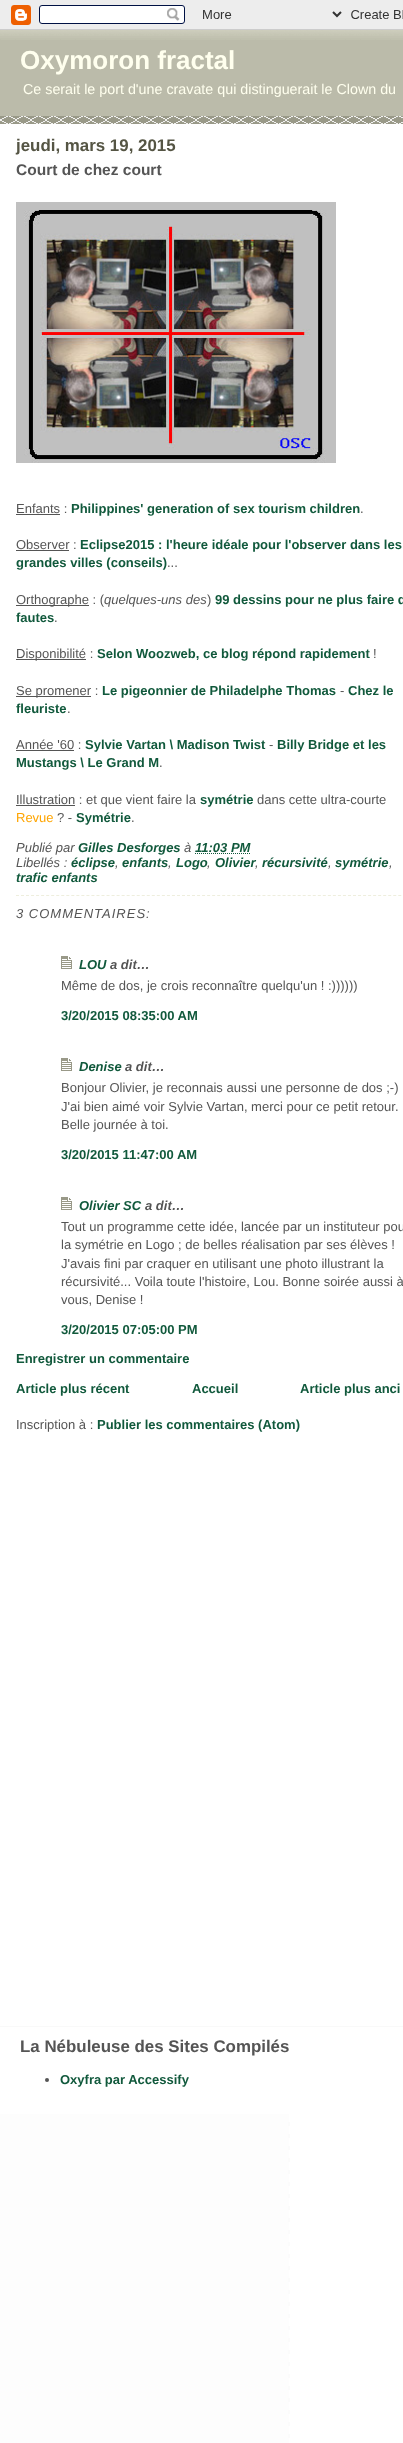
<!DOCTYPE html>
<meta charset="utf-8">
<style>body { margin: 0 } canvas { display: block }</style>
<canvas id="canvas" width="403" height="2443"></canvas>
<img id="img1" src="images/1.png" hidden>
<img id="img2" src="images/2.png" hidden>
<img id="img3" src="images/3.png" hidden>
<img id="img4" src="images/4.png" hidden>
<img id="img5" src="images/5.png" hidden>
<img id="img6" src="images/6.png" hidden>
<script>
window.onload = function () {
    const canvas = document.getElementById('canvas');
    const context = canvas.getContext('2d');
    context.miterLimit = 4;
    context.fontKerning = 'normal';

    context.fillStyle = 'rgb(255, 255, 255)';
    context.fillRect(0, 0, 403, 2443);
    context.drawImage(document.getElementById('img1'), 0, 2114, 403, 329);
    context.drawImage(document.getElementById('img2'), 0, 0, 403, 30);
    context.fillStyle = 'rgb(187, 187, 170)';
    context.fillRect(0, 40, 403, 76);
    context.drawImage(document.getElementById('img3'), 0, 116, 403, 8);
    context.drawImage(document.getElementById('img4'), 0, 30, 403, 10);
    context.drawImage(document.getElementById('img5'), 16, 202, 320, 261);
    context.fillStyle = 'rgb(85, 85, 85)';
    context.fillRect(16, 514, 44, 1);
    context.fillRect(16, 550, 53, 1);
    context.fillRect(16, 605, 73, 1);
    context.fillRect(16, 659, 70, 1);
    context.fillRect(16, 696, 75, 1);
    context.fillRect(16, 750, 58, 1);
    context.fillRect(16, 805, 59, 1);
    context.beginPath();
    context.moveTo(195, 853.5);
    context.lineTo(250.5, 853.5);
    context.strokeStyle = 'rgb(17, 89, 60)';
    context.setLineDash([1, 1]);
    context.stroke();
    context.beginPath();
    context.moveTo(16, 895.5);
    context.lineTo(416, 895.5);
    context.strokeStyle = 'rgb(238, 238, 221)';
    context.setLineDash([3, 2.03]);
    context.stroke();
    context.drawImage(document.getElementById('img6'), 61, 956, 11, 13);
    context.drawImage(document.getElementById('img6'), 61, 1058, 11, 13);
    context.drawImage(document.getElementById('img6'), 61, 1197, 11, 13);
    context.fillStyle = 'rgb(249, 249, 249)';
    context.fillRect(0, 2026, 403, 1);
    context.fillStyle = 'rgb(85, 85, 85)';
    context.beginPath();
    context.arc(47, 2080, 2, 0, 2 * Math.PI);
    context.fill();
    context.font = 'bold 26px Liberation Sans';
    context.fillStyle = 'rgb(255, 255, 238)';
    context.fillText('Oxymoron fractal', 20, 69);
    context.font = '14.3px Liberation Sans';
    context.fillText('Ce serait le port d\'une cravate qui distinguerait le Clown du', 23, 94);
    context.font = 'bold 16.9px Liberation Sans';
    context.fillStyle = 'rgb(85, 85, 68)';
    context.fillText('jeudi, mars 19, 2015', 16, 151);
    context.font = 'bold 15.5px Liberation Sans';
    context.fillStyle = 'rgb(85, 85, 85)';
    context.fillText('Court de chez court', 16, 175);
    context.font = '13px Liberation Sans';
    context.fillText('Enfants :', 16, 513);
    context.font = 'bold 13px Liberation Sans';
    context.fillStyle = 'rgb(17, 89, 60)';
    context.fillText('Philippines\' generation of sex tourism children', 71, 513);
    context.font = '13px Liberation Sans';
    context.fillStyle = 'rgb(85, 85, 85)';
    context.fillText('.', 360, 513);
    context.fillText('Observer :', 16, 549);
    context.font = 'bold 13px Liberation Sans';
    context.fillStyle = 'rgb(17, 89, 60)';
    context.fillText('Eclipse2015 : l\'heure idéale pour l\'observer dans les', 80, 549);
    context.fillText('grandes villes (conseils)', 16, 567);
    context.font = '13px Liberation Sans';
    context.fillStyle = 'rgb(85, 85, 85)';
    context.fillText('...', 167, 567);
    context.fillText('Orthographe : (', 16, 604);
    context.font = 'italic 13px Liberation Sans';
    context.fillText('quelques-uns des', 104, 604);
    context.font = '13px Liberation Sans';
    context.fillText(')', 207, 604);
    context.font = 'bold 13px Liberation Sans';
    context.fillStyle = 'rgb(17, 89, 60)';
    context.fillText('99 dessins pour ne plus faire d', 215, 604);
    context.fillText('fautes', 16, 622);
    context.font = '13px Liberation Sans';
    context.fillStyle = 'rgb(85, 85, 85)';
    context.fillText('.', 54, 622);
    context.fillText('Disponibilité :', 16, 658);
    context.font = 'bold 13px Liberation Sans';
    context.fillStyle = 'rgb(17, 89, 60)';
    context.fillText('Selon Woozweb, ce blog répond rapidement', 97, 658);
    context.font = '13px Liberation Sans';
    context.fillStyle = 'rgb(85, 85, 85)';
    context.fillText('!', 373, 658);
    context.fillText('Se promener :', 16, 695);
    context.font = 'bold 13px Liberation Sans';
    context.fillStyle = 'rgb(17, 89, 60)';
    context.fillText('Le pigeonnier de Philadelphe Thomas', 102, 695);
    context.font = '13px Liberation Sans';
    context.fillStyle = 'rgb(85, 85, 85)';
    context.fillText('-', 340, 695);
    context.font = 'bold 13px Liberation Sans';
    context.fillStyle = 'rgb(17, 89, 60)';
    context.fillText('Chez le', 348, 695);
    context.fillText('fleuriste', 16, 713);
    context.font = '13px Liberation Sans';
    context.fillStyle = 'rgb(85, 85, 85)';
    context.fillText('.', 67, 713);
    context.fillText('Année \'60 :', 16, 749);
    context.font = 'bold 13px Liberation Sans';
    context.fillStyle = 'rgb(17, 89, 60)';
    context.fillText('Sylvie Vartan \\ Madison Twist', 85, 749);
    context.font = '13px Liberation Sans';
    context.fillStyle = 'rgb(85, 85, 85)';
    context.fillText('-', 269, 749);
    context.font = 'bold 13px Liberation Sans';
    context.fillStyle = 'rgb(17, 89, 60)';
    context.fillText('Billy Bridge et les', 277, 749);
    context.fillText('Mustangs \\ Le Grand M', 16, 767);
    context.font = '13px Liberation Sans';
    context.fillStyle = 'rgb(85, 85, 85)';
    context.fillText('.', 159, 767);
    context.fillText('Illustration : et que vient faire la', 16, 804);
    context.font = 'bold 13px Liberation Sans';
    context.fillStyle = 'rgb(17, 89, 60)';
    context.fillText('symétrie', 200, 804);
    context.font = '13px Liberation Sans';
    context.fillStyle = 'rgb(85, 85, 85)';
    context.fillText('dans cette ultra-courte', 257, 804);
    context.fillStyle = 'rgb(255, 165, 0)';
    context.fillText('Revue', 16, 822);
    context.fillStyle = 'rgb(85, 85, 85)';
    context.fillText('? -', 57, 822);
    context.font = 'bold 13px Liberation Sans';
    context.fillStyle = 'rgb(17, 89, 60)';
    context.fillText('Symétrie', 76, 822);
    context.font = '13px Liberation Sans';
    context.fillStyle = 'rgb(85, 85, 85)';
    context.fillText('.', 131, 822);
    context.font = 'italic 13px Liberation Sans';
    context.fillText('Publié par', 16, 852);
    context.font = 'italic bold 13px Liberation Sans';
    context.fillStyle = 'rgb(17, 89, 60)';
    context.fillText('Gilles Desforges', 78, 852);
    context.font = 'italic 13px Liberation Sans';
    context.fillStyle = 'rgb(85, 85, 85)';
    context.fillText('à', 184, 852);
    context.font = 'italic bold 13px Liberation Sans';
    context.fillStyle = 'rgb(17, 89, 60)';
    context.fillText('11:03 PM', 195, 852);
    context.font = 'italic 13px Liberation Sans';
    context.fillStyle = 'rgb(85, 85, 85)';
    context.fillText('Libellés :', 16, 867);
    context.font = 'italic bold 13px Liberation Sans';
    context.fillStyle = 'rgb(17, 89, 60)';
    context.fillText('éclipse', 71, 867);
    context.font = 'italic 13px Liberation Sans';
    context.fillStyle = 'rgb(85, 85, 85)';
    context.fillText(',', 115, 867);
    context.font = 'italic bold 13px Liberation Sans';
    context.fillStyle = 'rgb(17, 89, 60)';
    context.fillText('enfants', 122, 867);
    context.font = 'italic 13px Liberation Sans';
    context.fillStyle = 'rgb(85, 85, 85)';
    context.fillText(',', 168, 867);
    context.font = 'italic bold 13px Liberation Sans';
    context.fillStyle = 'rgb(17, 89, 60)';
    context.fillText('Logo', 176, 867);
    context.font = 'italic 13px Liberation Sans';
    context.fillStyle = 'rgb(85, 85, 85)';
    context.fillText(',', 207, 867);
    context.font = 'italic bold 13px Liberation Sans';
    context.fillStyle = 'rgb(17, 89, 60)';
    context.fillText('Olivier', 215, 867);
    context.font = 'italic 13px Liberation Sans';
    context.fillStyle = 'rgb(85, 85, 85)';
    context.fillText(',', 255, 867);
    context.font = 'italic bold 13px Liberation Sans';
    context.fillStyle = 'rgb(17, 89, 60)';
    context.fillText('récursivité', 262, 867);
    context.font = 'italic 13px Liberation Sans';
    context.fillStyle = 'rgb(85, 85, 85)';
    context.fillText(',', 328, 867);
    context.font = 'italic bold 13px Liberation Sans';
    context.fillStyle = 'rgb(17, 89, 60)';
    context.fillText('symétrie', 335, 867);
    context.font = 'italic 13px Liberation Sans';
    context.fillStyle = 'rgb(85, 85, 85)';
    context.fillText(',', 389, 867);
    context.font = 'italic bold 13px Liberation Sans';
    context.fillStyle = 'rgb(17, 89, 60)';
    context.fillText('trafic enfants', 16, 882);
    context.letterSpacing = '1px';
    context.font = 'italic 13px Liberation Sans';
    context.fillStyle = 'rgb(85, 85, 85)';
    context.fillText('3 COMMENTAIRES:', 16, 918);
    context.letterSpacing = '0px';
    context.font = 'italic bold 13px Liberation Sans';
    context.fillStyle = 'rgb(17, 89, 60)';
    context.fillText('LOU', 79, 969);
    context.fillStyle = 'rgb(85, 85, 85)';
    context.fillText('a dit…', 110, 969);
    context.font = '13px Liberation Sans';
    context.fillText('Même de dos, je crois reconnaître quelqu\'un ! :))))))', 61, 990);
    context.font = 'bold 13px Liberation Sans';
    context.fillStyle = 'rgb(17, 89, 60)';
    context.fillText('3/20/2015 08:35:00 AM', 61, 1020);
    context.font = 'italic bold 13px Liberation Sans';
    context.fillText('Denise', 79, 1071);
    context.fillStyle = 'rgb(85, 85, 85)';
    context.fillText('a dit…', 125, 1071);
    context.font = '13px Liberation Sans';
    context.fillText('Bonjour Olivier, je reconnais aussi une personne de dos ;-)', 61, 1092);
    context.fillText('J\'ai bien aimé voir Sylvie Vartan, merci pour ce petit retour.', 61, 1111);
    context.fillText('Belle journée à toi.', 61, 1129);
    context.font = 'bold 13px Liberation Sans';
    context.fillStyle = 'rgb(17, 89, 60)';
    context.fillText('3/20/2015 11:47:00 AM', 61, 1159);
    context.font = 'italic bold 13px Liberation Sans';
    context.fillText('Olivier SC', 79, 1210);
    context.fillStyle = 'rgb(85, 85, 85)';
    context.fillText('a dit…', 145, 1210);
    context.font = '13px Liberation Sans';
    context.fillText('Tout un programme cette idée, lancée par un instituteur pou', 61, 1231);
    context.fillText('la symétrie en Logo ; de belles réalisation par ses élèves !', 61, 1249);
    context.fillText('J\'avais fini par craquer en utilisant une photo illustrant la', 61, 1268);
    context.fillText('récursivité... Voila toute l\'histoire, Lou. Bonne soirée aussi à', 61, 1286);
    context.fillText('vous, Denise !', 61, 1304);
    context.font = 'bold 13px Liberation Sans';
    context.fillStyle = 'rgb(17, 89, 60)';
    context.fillText('3/20/2015 07:05:00 PM', 61, 1334);
    context.fillText('Enregistrer un commentaire', 16, 1363);
    context.fillText('Article plus récent', 16, 1393);
    context.fillText('Accueil', 192, 1393);
    context.fillText('Article plus anci', 300, 1393);
    context.font = '13px Liberation Sans';
    context.fillStyle = 'rgb(85, 85, 85)';
    context.fillText('Inscription à :', 16, 1429);
    context.font = 'bold 13px Liberation Sans';
    context.fillStyle = 'rgb(17, 89, 60)';
    context.fillText('Publier les commentaires (Atom)', 97, 1429);
    context.font = 'bold 16.9px Liberation Sans';
    context.fillStyle = 'rgb(85, 85, 85)';
    context.fillText('La Nébuleuse des Sites Compilés', 20, 2052);
    context.font = 'bold 13px Liberation Sans';
    context.fillStyle = 'rgb(17, 89, 60)';
    context.fillText('Oxyfra par Accessify', 60, 2084);
};
</script>
